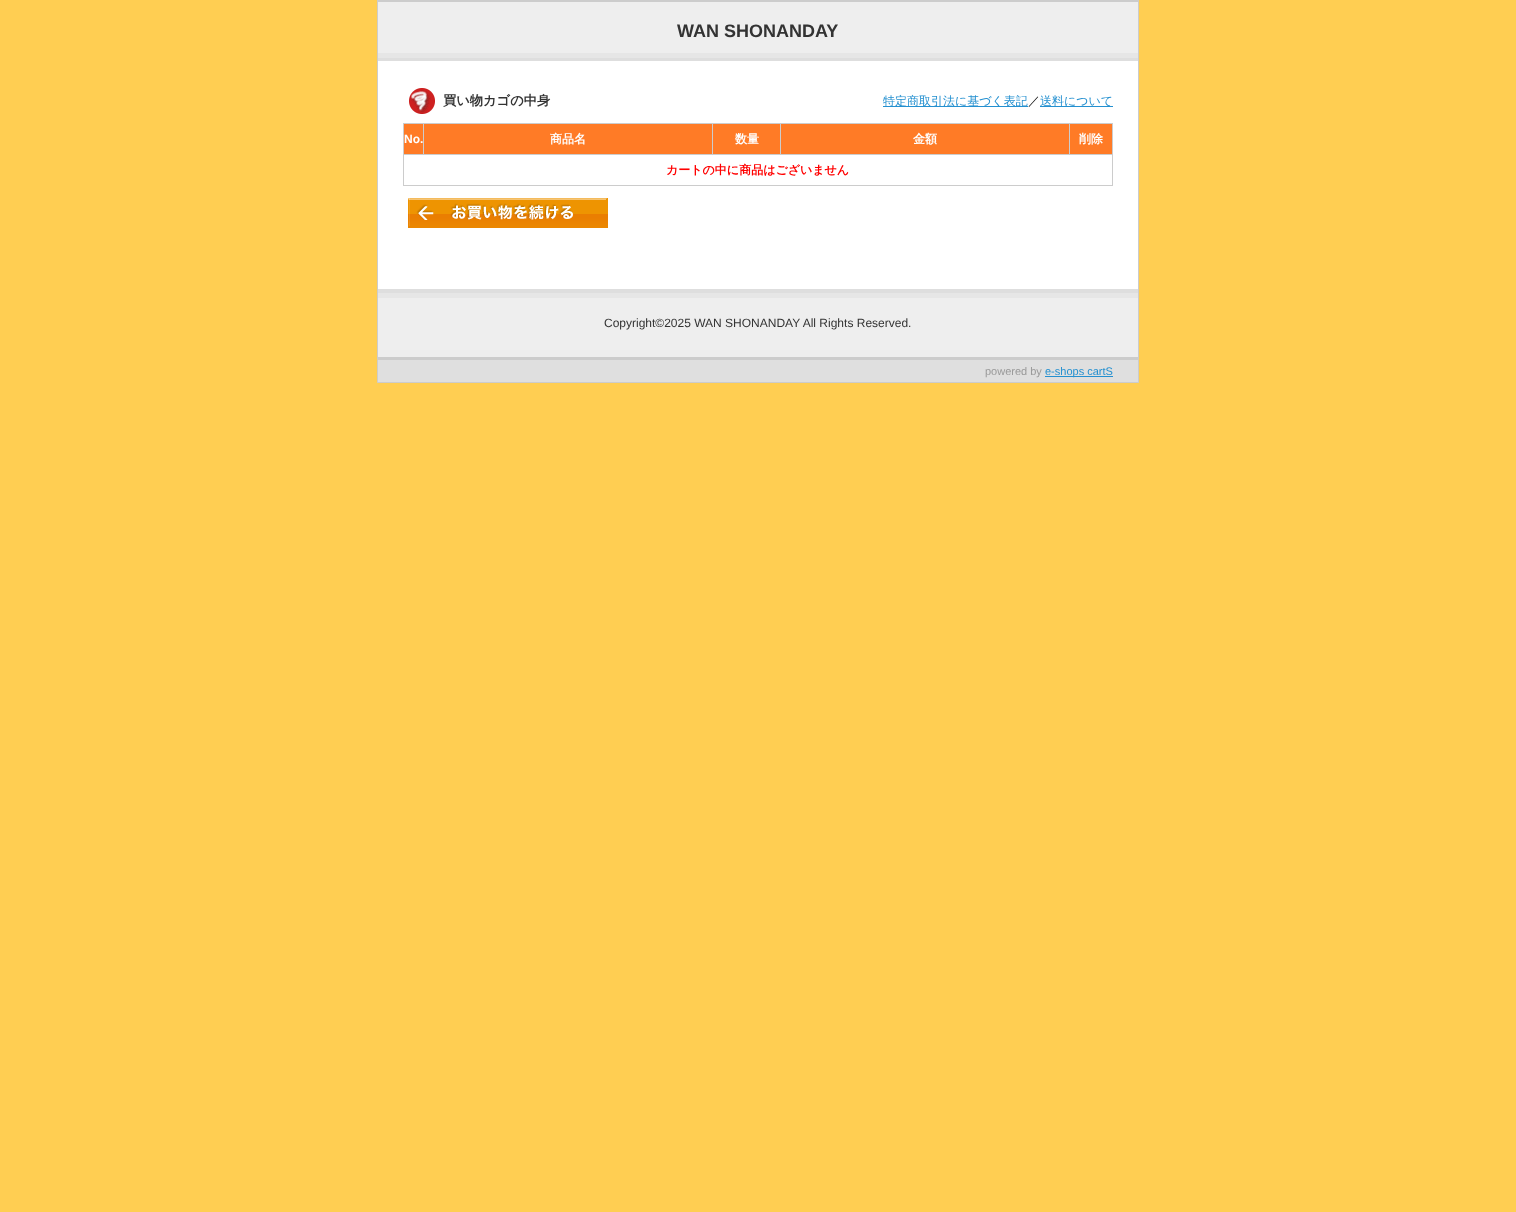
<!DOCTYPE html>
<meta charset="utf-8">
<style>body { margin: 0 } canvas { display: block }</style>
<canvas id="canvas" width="1516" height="1212"></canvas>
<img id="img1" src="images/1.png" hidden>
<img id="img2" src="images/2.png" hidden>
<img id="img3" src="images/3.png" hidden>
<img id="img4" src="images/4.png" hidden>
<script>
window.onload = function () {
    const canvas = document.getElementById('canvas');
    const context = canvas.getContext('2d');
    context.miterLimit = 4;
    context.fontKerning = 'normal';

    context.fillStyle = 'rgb(255, 206, 82)';
    context.fillRect(0, 0, 1516, 1212);
    context.drawImage(document.getElementById('img1'), 378, 2, 760, 59);
    context.fillStyle = 'rgb(204, 204, 204)';
    context.fillRect(377, 0, 762, 2);
    context.fillRect(1138, 0, 1, 61);
    context.fillRect(377, 0, 1, 61);
    context.fillStyle = 'rgb(255, 255, 255)';
    context.fillRect(378, 61, 760, 228);
    context.drawImage(document.getElementById('img2'), 409, 88, 26, 26);
    context.fillStyle = 'rgb(36, 144, 208)';
    context.fillRect(883, 106, 145, 1);
    context.fillRect(1040, 106, 73, 1);
    context.fillStyle = 'rgb(204, 204, 204)';
    context.fillRect(403, 123, 710, 1);
    context.fillRect(1112, 123, 1, 63);
    context.fillRect(403, 185, 710, 1);
    context.fillRect(403, 123, 1, 63);
    context.fillStyle = 'rgb(255, 123, 38)';
    context.fillRect(404, 124, 19, 30);
    context.fillRect(424, 124, 288, 30);
    context.fillStyle = 'rgb(204, 204, 204)';
    context.fillRect(403, 154, 710, 1);
    context.fillRect(423, 123, 1, 32);
    context.fillStyle = 'rgb(255, 123, 38)';
    context.fillRect(713, 124, 67, 30);
    context.fillStyle = 'rgb(204, 204, 204)';
    context.fillRect(712, 123, 1, 32);
    context.fillStyle = 'rgb(255, 123, 38)';
    context.fillRect(781, 124, 288, 30);
    context.fillStyle = 'rgb(204, 204, 204)';
    context.fillRect(780, 123, 1, 32);
    context.fillStyle = 'rgb(255, 123, 38)';
    context.fillRect(1070, 124, 42, 30);
    context.fillStyle = 'rgb(204, 204, 204)';
    context.fillRect(1069, 123, 1, 32);
    context.drawImage(document.getElementById('img3'), 408, 198, 200, 30);
    context.fillStyle = 'rgb(238, 238, 238)';
    context.fillRect(378, 348, 760, 9);
    context.drawImage(document.getElementById('img4'), 378, 289, 760, 59);
    context.fillStyle = 'rgb(204, 204, 204)';
    context.fillRect(1138, 61, 1, 298);
    context.fillRect(377, 357, 762, 2);
    context.fillRect(377, 61, 1, 298);
    context.fillStyle = 'rgb(223, 223, 223)';
    context.beginPath();
    context.rect(377.5, 359.5, 761, 23);
    context.fill();
    context.strokeStyle = 'rgb(204, 204, 204)';
    context.stroke();
    context.fillStyle = 'rgb(36, 144, 208)';
    context.fillRect(1045, 376, 68, 1);
    context.font = 'bold 18px Liberation Sans';
    context.fillStyle = 'rgb(51, 51, 51)';
    context.fillText('WAN SHONANDAY', 677, 37);
    context.font = 'bold 13.25px WenQuanYi Zen Hei';
    context.fillText('買い物カゴの中身', 443, 105);
    context.font = '500 12px WenQuanYi Zen Hei';
    context.fillStyle = 'rgb(36, 144, 208)';
    context.fillText('特定商取引法に基づく表記', 883, 105);
    context.fillStyle = 'rgb(0, 0, 0)';
    context.fillText('／', 1028, 105);
    context.fillStyle = 'rgb(36, 144, 208)';
    context.fillText('送料について', 1040, 105);
    context.font = 'bold 12px Liberation Sans';
    context.fillStyle = 'rgb(255, 255, 255)';
    context.fillText('No.', 404, 143);
    context.font = 'bold 12px WenQuanYi Zen Hei';
    context.fillText('商品名', 550, 143);
    context.fillText('数量', 735, 143);
    context.fillText('金額', 913, 143);
    context.fillText('削除', 1079, 143);
    context.fillStyle = 'rgb(255, 0, 0)';
    context.fillText('カートの中に商品はございません', 666, 174);
    context.font = '12px Liberation Sans';
    context.fillStyle = 'rgb(51, 51, 51)';
    context.fillText('Copyright©2025 WAN SHONANDAY All Rights Reserved.', 604, 327);
    context.font = '11px Liberation Sans';
    context.fillStyle = 'rgb(153, 153, 153)';
    context.fillText('powered by', 985, 375);
    context.fillStyle = 'rgb(36, 144, 208)';
    context.fillText('e-shops cartS', 1045, 375);
};
</script>
